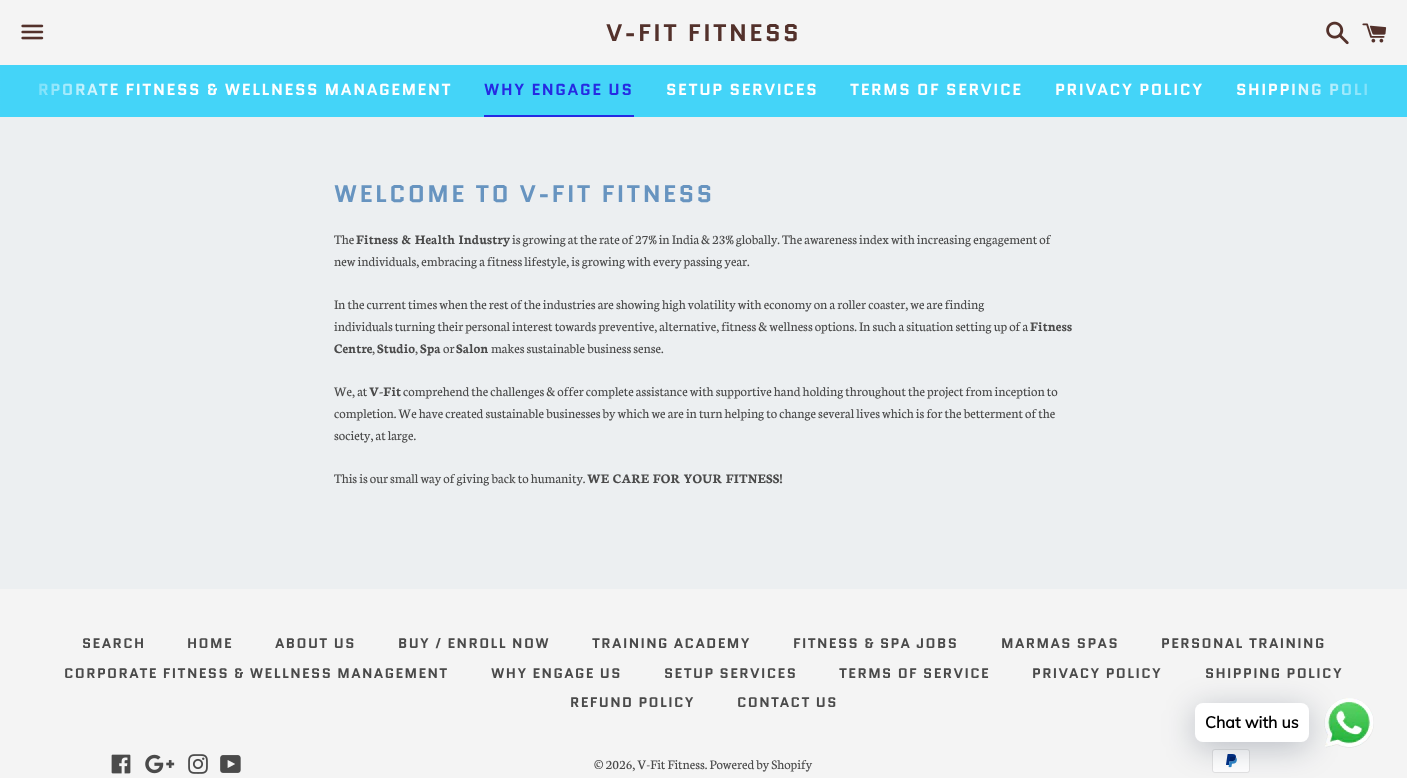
<!DOCTYPE html>
<meta charset="utf-8">
<style>body { margin: 0 } canvas { display: block }</style>
<canvas id="canvas" width="1407" height="778"></canvas>
<img id="img1" src="images/1.png" hidden>
<img id="img2" src="images/2.png" hidden>
<img id="img3" src="images/3.png" hidden>
<img id="img4" src="images/4.png" hidden>
<img id="img5" src="images/5.png" hidden>
<img id="img6" src="images/6.png" hidden>
<img id="img7" src="images/7.png" hidden>
<img id="img8" src="images/8.png" hidden>
<img id="img9" src="images/9.png" hidden>
<script>
window.onload = function () {
    const canvas = document.getElementById('canvas');
    const context = canvas.getContext('2d');
    context.miterLimit = 4;
    context.fontKerning = 'normal';
    let gradient;

    context.fillStyle = 'rgb(236, 239, 241)';
    context.fillRect(0, 0, 1407, 778);
    context.fillStyle = 'rgb(244, 244, 244)';
    context.fillRect(0, 0, 1407, 65);
    context.drawImage(document.getElementById('img1'), 21, 24, 23, 16);
    context.drawImage(document.getElementById('img2'), 1326, 21, 23, 24);
    context.drawImage(document.getElementById('img3'), 1362, 23, 25, 20);
    context.fillStyle = 'rgb(68, 212, 248)';
    context.fillRect(1, 65, 1405, 52);
    context.fillStyle = 'rgb(38, 42, 226)';
    context.fillRect(484, 115, 150, 2);
    context.fillStyle = 'rgb(244, 244, 244)';
    context.fillRect(0, 589, 1407, 189);
    context.drawImage(document.getElementById('img4'), 111, 754, 20, 20);
    context.drawImage(document.getElementById('img5'), 145, 754, 30, 20);
    context.drawImage(document.getElementById('img6'), 188, 754, 20, 20);
    context.drawImage(document.getElementById('img7'), 220, 755, 21, 18);
    context.drawImage(document.getElementById('img8'), 1212, 749, 38, 24);
    context.drawImage(document.getElementById('img9'), 1324, 698, 50, 50);
    context.fillStyle = 'rgba(0, 18, 46, 0.24)';
    context.filter = 'blur(16px)';
    context.beginPath();
    context.roundRect(1195, 709, 114, 39, 8);
    context.fill();
    context.filter = 'none';
    context.fillStyle = 'rgb(255, 255, 255)';
    context.beginPath();
    context.roundRect(1195, 703, 114, 39, 8);
    context.fill();
    context.letterSpacing = '2.4px';
    context.font = 'bold 24px Quantico';
    context.fillStyle = 'rgb(83, 49, 43)';
    context.fillText('V-FIT FITNESS', 606, 41);
    context.letterSpacing = '1.6px';
    context.font = 'bold 16px Quantico';
    context.fillStyle = 'rgb(255, 255, 255)';
    context.fillText('RPORATE FITNESS & WELLNESS MANAGEMENT', 38, 95);
    gradient = context.createLinearGradient(125, 91, 0, 91);
    gradient.addColorStop(0, 'rgba(68, 212, 248, 0)');
    gradient.addColorStop(1, 'rgb(68, 212, 248)');
    context.fillStyle = gradient;
    context.fillRect(0, 65, 118, 52);
    context.fillStyle = 'rgb(38, 42, 226)';
    context.fillText('WHY ENGAGE US', 484, 95);
    context.fillStyle = 'rgb(255, 255, 255)';
    context.fillText('SETUP SERVICES', 666, 95);
    context.fillText('TERMS OF SERVICE', 850, 95);
    context.fillText('PRIVACY POLICY', 1055, 95);
    context.fillText('SHIPPING POLI', 1236, 95);
    gradient = context.createLinearGradient(1282, 91, 1407, 91);
    gradient.addColorStop(0, 'rgba(68, 212, 248, 0)');
    gradient.addColorStop(1, 'rgb(68, 212, 248)');
    context.fillStyle = gradient;
    context.fillRect(1285, 65, 122, 52);
    context.letterSpacing = '2.4px';
    context.font = 'bold 24px Quantico';
    context.fillStyle = 'rgb(103, 148, 192)';
    context.fillText('WELCOME TO V-FIT FITNESS', 334, 202);
    context.letterSpacing = '0px';
    context.font = '14px Neuton';
    context.fillStyle = 'rgb(74, 74, 74)';
    context.fillText('The', 334, 244);
    context.font = 'bold 14px Neuton';
    context.fillText('Fitness & Health Industry', 356, 244);
    context.font = '14px Neuton';
    context.fillText('is growing at the rate of 27% in India & 23% globally. The awareness index with increasing engagement of', 512, 244);
    context.fillText('new individuals, embracing a fitness lifestyle, is growing with every passing year.', 334, 266);
    context.fillText('In the current times when the rest of the industries are showing high volatility with economy on a roller coaster, we are finding', 334, 309);
    context.fillText('individuals turning their personal interest towards preventive, alternative, fitness & wellness options. In such a situation setting up of a', 334, 331);
    context.font = 'bold 14px Neuton';
    context.fillText('Fitness', 1030, 331);
    context.fillText('Centre', 334, 353);
    context.font = '14px Neuton';
    context.fillText(',', 372, 353);
    context.font = 'bold 14px Neuton';
    context.fillText('Studio', 377, 353);
    context.font = '14px Neuton';
    context.fillText(',', 415, 353);
    context.font = 'bold 14px Neuton';
    context.fillText('Spa', 420, 353);
    context.font = '14px Neuton';
    context.fillText('or', 443, 353);
    context.font = 'bold 14px Neuton';
    context.fillText('Salon', 456, 353);
    context.font = '14px Neuton';
    context.fillText('makes sustainable business sense.', 491, 353);
    context.fillText('We, at', 334, 396);
    context.font = 'bold 14px Neuton';
    context.fillText('V-Fit', 369, 396);
    context.font = '14px Neuton';
    context.fillText('comprehend the challenges & offer complete assistance with supportive hand holding throughout the project from inception to', 403, 396);
    context.fillText('completion. We have created sustainable businesses by which we are in turn helping to change several lives which is for the betterment of the', 334, 418);
    context.fillText('society, at large.', 334, 440);
    context.fillText('This is our small way of giving back to humanity.', 334, 483);
    context.font = 'bold 14px Neuton';
    context.fillText('WE CARE FOR YOUR FITNESS!', 587, 483);
    context.letterSpacing = '1.4px';
    context.font = 'bold 14px Quantico';
    context.fillText('SEARCH', 82, 648);
    context.fillText('HOME', 187, 648);
    context.fillText('ABOUT US', 275, 648);
    context.fillText('BUY / ENROLL NOW', 398, 648);
    context.fillText('TRAINING ACADEMY', 592, 648);
    context.fillText('FITNESS & SPA JOBS', 793, 648);
    context.fillText('MARMAS SPAS', 1001, 648);
    context.fillText('PERSONAL TRAINING', 1161, 648);
    context.fillText('CORPORATE FITNESS & WELLNESS MANAGEMENT', 64, 678);
    context.fillText('WHY ENGAGE US', 491, 678);
    context.fillText('SETUP SERVICES', 664, 678);
    context.fillText('TERMS OF SERVICE', 839, 678);
    context.fillText('PRIVACY POLICY', 1032, 678);
    context.fillText('SHIPPING POLICY', 1205, 678);
    context.fillText('REFUND POLICY', 570, 707);
    context.fillText('CONTACT US', 737, 707);
    context.letterSpacing = '0px';
    context.font = '14px Neuton';
    context.fillText('© 2026, V-Fit Fitness. Powered by Shopify', 594, 769);
    context.font = 'bold 16px Muli';
    context.fillStyle = 'rgb(0, 0, 0)';
    context.fillText('Chat with us', 1205, 728);
};
</script>
